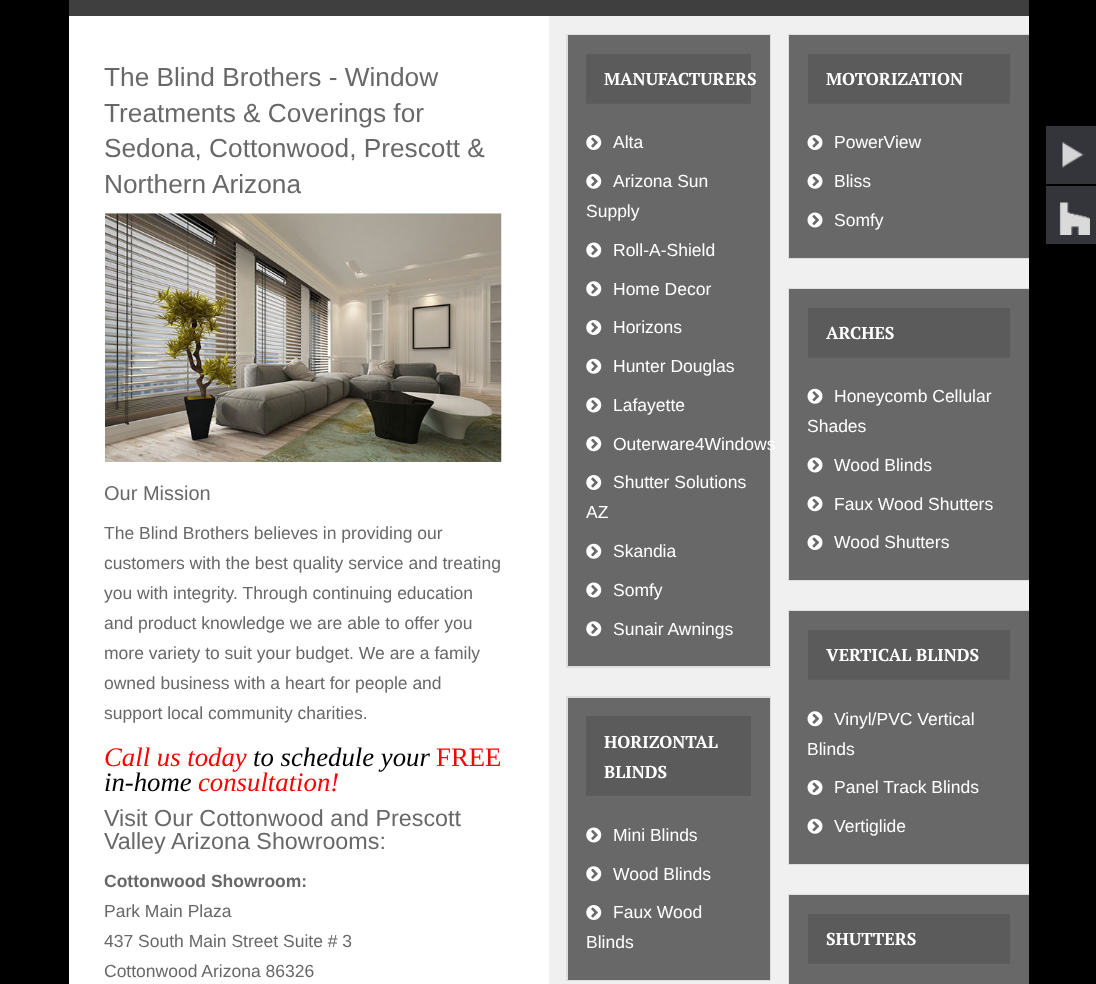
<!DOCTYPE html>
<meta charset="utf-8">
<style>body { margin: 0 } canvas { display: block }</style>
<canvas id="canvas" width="1096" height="984"></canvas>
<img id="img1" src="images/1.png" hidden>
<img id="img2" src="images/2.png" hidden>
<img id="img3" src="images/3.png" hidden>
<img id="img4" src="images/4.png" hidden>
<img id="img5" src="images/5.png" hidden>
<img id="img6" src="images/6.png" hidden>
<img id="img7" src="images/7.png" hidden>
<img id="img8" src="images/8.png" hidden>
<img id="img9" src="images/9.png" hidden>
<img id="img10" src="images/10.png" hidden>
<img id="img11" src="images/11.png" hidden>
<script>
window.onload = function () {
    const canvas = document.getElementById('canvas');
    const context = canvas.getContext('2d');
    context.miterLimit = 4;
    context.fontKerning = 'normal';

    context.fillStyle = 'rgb(0, 0, 0)';
    context.fillRect(0, 0, 1096, 984);
    context.fillStyle = 'rgb(63, 63, 63)';
    context.fillRect(69, 0, 960, 16);
    context.fillStyle = 'rgb(255, 255, 255)';
    context.fillRect(69, 16, 480, 968);
    context.drawImage(document.getElementById('img1'), 105, 213, 397, 249);
    context.fillStyle = 'rgb(240, 240, 240)';
    context.fillRect(549, 16, 240, 968);
    context.fillStyle = 'rgba(0, 0, 0, 0.08)';
    context.filter = 'blur(0.5px)';
    context.beginPath();
    context.rect(566, 34, 205, 634);
    context.fill();
    context.filter = 'none';
    context.fillStyle = 'rgb(104, 104, 104)';
    context.fillRect(568, 35, 202, 631);
    context.fillStyle = 'rgb(91, 91, 91)';
    context.fillRect(586, 54, 165, 50);
    context.fillStyle = 'rgba(104, 104, 104, 0.25)';
    context.fillRect(586, 103, 165, 1);
    context.drawImage(document.getElementById('img2'), 586, 135, 16, 15);
    context.drawImage(document.getElementById('img3'), 586, 173, 16, 16);
    context.drawImage(document.getElementById('img4'), 586, 242, 16, 16);
    context.drawImage(document.getElementById('img5'), 586, 281, 16, 16);
    context.drawImage(document.getElementById('img2'), 586, 320, 16, 15);
    context.drawImage(document.getElementById('img3'), 586, 358, 16, 16);
    context.drawImage(document.getElementById('img4'), 586, 397, 16, 16);
    context.drawImage(document.getElementById('img5'), 586, 436, 16, 16);
    context.drawImage(document.getElementById('img2'), 586, 475, 16, 15);
    context.drawImage(document.getElementById('img3'), 586, 543, 16, 16);
    context.drawImage(document.getElementById('img4'), 586, 582, 16, 16);
    context.drawImage(document.getElementById('img5'), 586, 621, 16, 16);
    context.fillStyle = 'rgba(0, 0, 0, 0.08)';
    context.filter = 'blur(0.5px)';
    context.beginPath();
    context.rect(566, 696, 205, 285);
    context.fill();
    context.filter = 'none';
    context.fillStyle = 'rgb(104, 104, 104)';
    context.fillRect(568, 698, 202, 282);
    context.fillStyle = 'rgb(91, 91, 91)';
    context.fillRect(586, 716, 165, 80);
    context.fillStyle = 'rgba(104, 104, 104, 0.25)';
    context.fillRect(586, 795, 165, 1);
    context.drawImage(document.getElementById('img4'), 586, 827, 16, 16);
    context.drawImage(document.getElementById('img5'), 586, 866, 16, 16);
    context.drawImage(document.getElementById('img2'), 586, 905, 16, 15);
    context.fillStyle = 'rgb(240, 240, 240)';
    context.fillRect(789, 16, 240, 879);
    context.fillStyle = 'rgba(0, 0, 0, 0.08)';
    context.filter = 'blur(0.5px)';
    context.beginPath();
    context.rect(788, 34, 242, 225);
    context.fill();
    context.filter = 'none';
    context.fillStyle = 'rgb(104, 104, 104)';
    context.fillRect(789, 35, 240, 223);
    context.fillStyle = 'rgb(91, 91, 91)';
    context.fillRect(808, 54, 202, 50);
    context.fillStyle = 'rgba(104, 104, 104, 0.25)';
    context.fillRect(808, 103, 202, 1);
    context.drawImage(document.getElementById('img6'), 807, 135, 16, 15);
    context.drawImage(document.getElementById('img7'), 807, 173, 16, 16);
    context.drawImage(document.getElementById('img8'), 807, 212, 16, 16);
    context.fillStyle = 'rgba(0, 0, 0, 0.08)';
    context.filter = 'blur(0.5px)';
    context.beginPath();
    context.rect(788, 288, 242, 293);
    context.fill();
    context.filter = 'none';
    context.fillStyle = 'rgb(104, 104, 104)';
    context.fillRect(789, 289, 240, 291);
    context.fillStyle = 'rgb(91, 91, 91)';
    context.fillRect(808, 308, 202, 50);
    context.fillStyle = 'rgba(104, 104, 104, 0.25)';
    context.fillRect(808, 356, 202, 2);
    context.drawImage(document.getElementById('img7'), 807, 388, 16, 16);
    context.drawImage(document.getElementById('img8'), 807, 457, 16, 16);
    context.drawImage(document.getElementById('img9'), 807, 496, 16, 16);
    context.drawImage(document.getElementById('img6'), 807, 535, 16, 15);
    context.fillStyle = 'rgba(0, 0, 0, 0.08)';
    context.filter = 'blur(0.5px)';
    context.beginPath();
    context.rect(788, 610, 242, 255);
    context.fill();
    context.filter = 'none';
    context.fillStyle = 'rgb(104, 104, 104)';
    context.fillRect(789, 611, 240, 253);
    context.fillStyle = 'rgb(91, 91, 91)';
    context.fillRect(808, 630, 202, 50);
    context.fillStyle = 'rgba(104, 104, 104, 0.25)';
    context.fillRect(808, 679, 202, 1);
    context.drawImage(document.getElementById('img9'), 807, 711, 16, 16);
    context.drawImage(document.getElementById('img6'), 807, 780, 16, 15);
    context.drawImage(document.getElementById('img7'), 807, 818, 16, 16);
    context.fillStyle = 'rgba(0, 0, 0, 0.08)';
    context.filter = 'blur(0.5px)';
    context.beginPath();
    context.rect(788, 894, 242, 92);
    context.fill();
    context.filter = 'none';
    context.fillStyle = 'rgb(104, 104, 104)';
    context.fillRect(789, 895, 240, 89);
    context.fillStyle = 'rgb(91, 91, 91)';
    context.fillRect(808, 914, 202, 50);
    context.fillStyle = 'rgba(104, 104, 104, 0.25)';
    context.fillRect(808, 963, 202, 1);
    context.fillStyle = 'rgb(51, 53, 59)';
    context.fillRect(1046, 126, 50, 58);
    context.drawImage(document.getElementById('img10'), 1062, 141, 22, 28);
    context.fillRect(1046, 186, 50, 58);
    context.drawImage(document.getElementById('img11'), 1059, 202, 31, 33);
    context.font = '26.25px Liberation Sans';
    context.fillStyle = 'rgb(104, 104, 104)';
    context.fillText('The Blind Brothers - Window', 104, 86);
    context.fillText('Treatments & Coverings for', 104, 122);
    context.fillText('Sedona, Cottonwood, Prescott &', 104, 157);
    context.fillText('Northern Arizona', 104, 193);
    context.font = '20px Liberation Sans';
    context.fillText('Our Mission', 104, 500);
    context.font = '17.5px Liberation Sans';
    context.fillText('The Blind Brothers believes in providing our', 104, 539);
    context.fillText('customers with the best quality service and treating', 104, 569);
    context.fillText('you with integrity. Through continuing education', 104, 599);
    context.fillText('and product knowledge we are able to offer you', 104, 629);
    context.fillText('more variety to suit your budget. We are a family', 104, 659);
    context.fillText('owned business with a heart for people and', 104, 689);
    context.fillText('support local community charities.', 104, 719);
    context.font = 'italic 26.75px Liberation Serif';
    context.fillStyle = 'rgb(255, 0, 0)';
    context.fillText('Call us today', 104, 766);
    context.fillStyle = 'rgb(0, 0, 0)';
    context.fillText('to schedule your', 253, 766);
    context.font = '26.75px Liberation Serif';
    context.fillStyle = 'rgb(255, 0, 0)';
    context.fillText('FREE', 436, 766);
    context.font = 'italic 26.75px Liberation Serif';
    context.fillStyle = 'rgb(0, 0, 0)';
    context.fillText('in-home', 104, 791);
    context.fillStyle = 'rgb(255, 0, 0)';
    context.fillText('consultation!', 198, 791);
    context.font = '23.3px Liberation Sans';
    context.fillStyle = 'rgb(104, 104, 104)';
    context.fillText('Visit Our Cottonwood and Prescott', 104, 826);
    context.fillText('Valley Arizona Showrooms:', 104, 849);
    context.font = 'bold 17.5px Liberation Sans';
    context.fillText('Cottonwood Showroom:', 104, 887);
    context.font = '17.5px Liberation Sans';
    context.fillText('Park Main Plaza', 104, 917);
    context.fillText('437 South Main Street Suite # 3', 104, 947);
    context.fillText('Cottonwood Arizona 86326', 104, 977);
    context.font = 'bold 17.25px PT Serif';
    context.fillStyle = 'rgb(255, 255, 255)';
    context.fillText('MANUFACTURERS', 604, 85);
    context.font = '17.5px Liberation Sans';
    context.fillText('Alta', 613, 148);
    context.fillText('Arizona Sun', 613, 187);
    context.fillText('Supply', 586, 217);
    context.fillText('Roll-A-Shield', 613, 256);
    context.fillText('Home Decor', 613, 295);
    context.fillText('Horizons', 613, 333);
    context.fillText('Hunter Douglas', 613, 372);
    context.fillText('Lafayette', 613, 411);
    context.fillText('Outerware4Windows', 613, 450);
    context.fillText('Shutter Solutions', 613, 488);
    context.fillText('AZ', 586, 518);
    context.fillText('Skandia', 613, 557);
    context.fillText('Somfy', 613, 596);
    context.fillText('Sunair Awnings', 613, 635);
    context.font = 'bold 17.25px PT Serif';
    context.fillText('HORIZONTAL', 604, 748);
    context.fillText('BLINDS', 604, 778);
    context.font = '17.5px Liberation Sans';
    context.fillText('Mini Blinds', 613, 841);
    context.fillText('Wood Blinds', 613, 880);
    context.fillText('Faux Wood', 613, 918);
    context.fillText('Blinds', 586, 948);
    context.font = 'bold 17.25px PT Serif';
    context.fillText('MOTORIZATION', 826, 85);
    context.font = '17.5px Liberation Sans';
    context.fillText('PowerView', 834, 148);
    context.fillText('Bliss', 834, 187);
    context.fillText('Somfy', 834, 226);
    context.font = 'bold 17.25px PT Serif';
    context.fillText('ARCHES', 826, 339);
    context.font = '17.5px Liberation Sans';
    context.fillText('Honeycomb Cellular', 834, 402);
    context.fillText('Shades', 807, 432);
    context.fillText('Wood Blinds', 834, 471);
    context.fillText('Faux Wood Shutters', 834, 510);
    context.fillText('Wood Shutters', 834, 548);
    context.font = 'bold 17.25px PT Serif';
    context.fillText('VERTICAL BLINDS', 826, 661);
    context.font = '17.5px Liberation Sans';
    context.fillText('Vinyl/PVC Vertical', 834, 725);
    context.fillText('Blinds', 807, 755);
    context.fillText('Panel Track Blinds', 834, 793);
    context.fillText('Vertiglide', 834, 832);
    context.font = 'bold 17.25px PT Serif';
    context.fillText('SHUTTERS', 826, 945);
};
</script>
